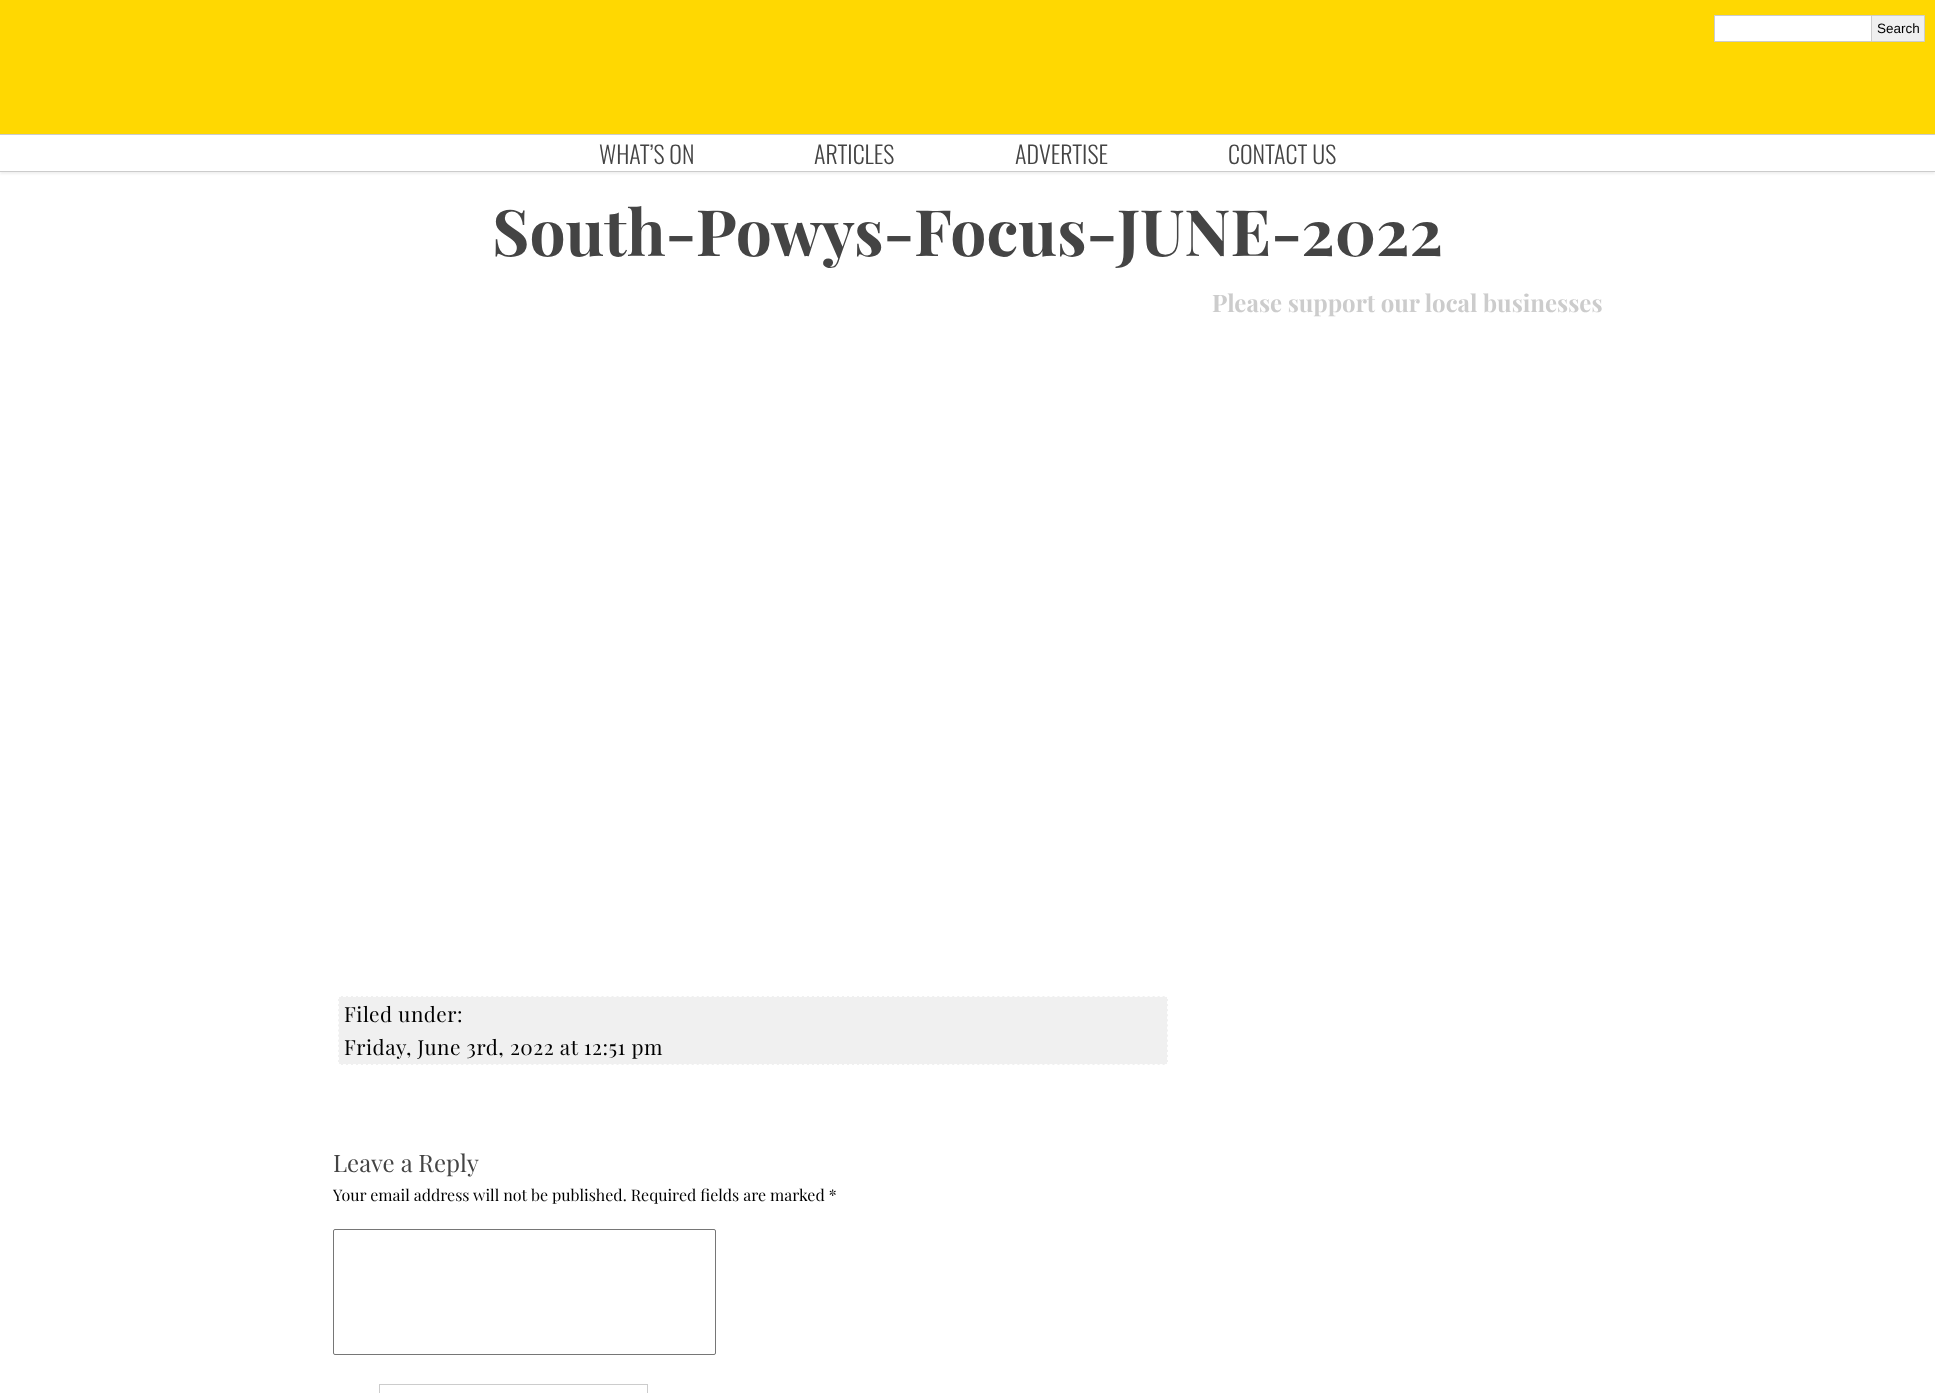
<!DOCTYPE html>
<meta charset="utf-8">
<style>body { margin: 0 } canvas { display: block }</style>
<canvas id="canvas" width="1935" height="1393"></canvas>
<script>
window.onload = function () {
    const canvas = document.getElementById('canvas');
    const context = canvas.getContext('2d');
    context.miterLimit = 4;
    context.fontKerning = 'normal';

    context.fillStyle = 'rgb(255, 255, 255)';
    context.fillRect(0, 0, 1935, 1393);
    context.fillStyle = 'rgb(240, 240, 240)';
    context.filter = 'blur(1px)';
    context.beginPath();
    context.rect(0, 2, 1935, 172);
    context.fill();
    context.filter = 'none';
    context.fillStyle = 'rgb(255, 216, 1)';
    context.fillRect(0, 0, 1935, 134);
    context.fillStyle = 'rgb(255, 255, 255)';
    context.fillRect(1715, 16, 156, 25);
    context.fillStyle = 'rgb(239, 239, 239)';
    context.beginPath();
    context.rect(1871.5, 15.5, 53, 26);
    context.fill();
    context.strokeStyle = 'rgb(204, 204, 204)';
    context.stroke();
    context.save();
    context.beginPath();
    context.rect(1714, 10, 157, 32);
    context.clip();
    context.strokeRect(1714.5, 15.5, 160, 26);
    context.restore();
    context.fillStyle = 'rgb(255, 255, 255)';
    context.fillRect(0, 135, 1935, 36);
    context.fillStyle = 'rgb(204, 204, 204)';
    context.fillRect(0, 134, 1935, 1);
    context.fillRect(0, 171, 1935, 1);
    context.fillStyle = 'rgb(240, 240, 240)';
    context.fillRect(338, 996, 830, 69);
    context.beginPath();
    context.moveTo(338, 996.5);
    context.lineTo(1168, 996.5);
    context.strokeStyle = 'rgb(255, 255, 255)';
    context.setLineDash([3, 2.01]);
    context.stroke();
    context.beginPath();
    context.moveTo(1167.5, 996);
    context.lineTo(1167.5, 1065);
    context.setLineDash([3, 2.08]);
    context.stroke();
    context.beginPath();
    context.moveTo(338, 1064.5);
    context.lineTo(1168, 1064.5);
    context.setLineDash([3, 2.01]);
    context.stroke();
    context.beginPath();
    context.moveTo(338.5, 996);
    context.lineTo(338.5, 1065);
    context.setLineDash([3, 2.08]);
    context.stroke();
    context.beginPath();
    context.roundRect(333.5, 1229.5, 382, 125, 1.5);
    context.strokeStyle = 'rgb(118, 118, 118)';
    context.setLineDash([]);
    context.stroke();
    context.strokeStyle = 'rgb(204, 204, 204)';
    context.strokeRect(379.5, 1384.5, 268, 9);
    context.font = '13.5px Liberation Sans';
    context.fillStyle = 'rgb(0, 0, 0)';
    context.fillText('Search', 1877, 33);
    context.font = '300 24px Oswald';
    context.fillStyle = 'rgb(68, 68, 68)';
    context.fillText('WHAT’S ON', 599, 164);
    context.fillText('ARTICLES', 814, 164);
    context.fillText('ADVERTISE', 1015, 164);
    context.fillText('CONTACT US', 1228, 164);
    context.font = 'bold 64px Playfair Display';
    context.fillText('South-Powys-Focus-JUNE-2022', 492, 256);
    context.font = 'bold 24px Playfair Display';
    context.fillStyle = 'rgb(204, 204, 204)';
    context.fillText('Please support our local businesses', 1212, 312);
    context.letterSpacing = '0.5px';
    context.font = '20.75px Playfair Display';
    context.fillStyle = 'rgb(0, 0, 0)';
    context.fillText('Filed under:', 344, 1022);
    context.fillText('Friday, June 3rd, 2022 at 12:51 pm', 344, 1055);
    context.letterSpacing = '0px';
    context.font = '24px Playfair Display';
    context.fillStyle = 'rgb(68, 68, 68)';
    context.fillText('Leave a Reply', 333, 1172);
    context.font = '16px Playfair Display';
    context.fillStyle = 'rgb(0, 0, 0)';
    context.fillText('Your email address will not be published. Required fields are marked *', 333, 1201);
};
</script>
